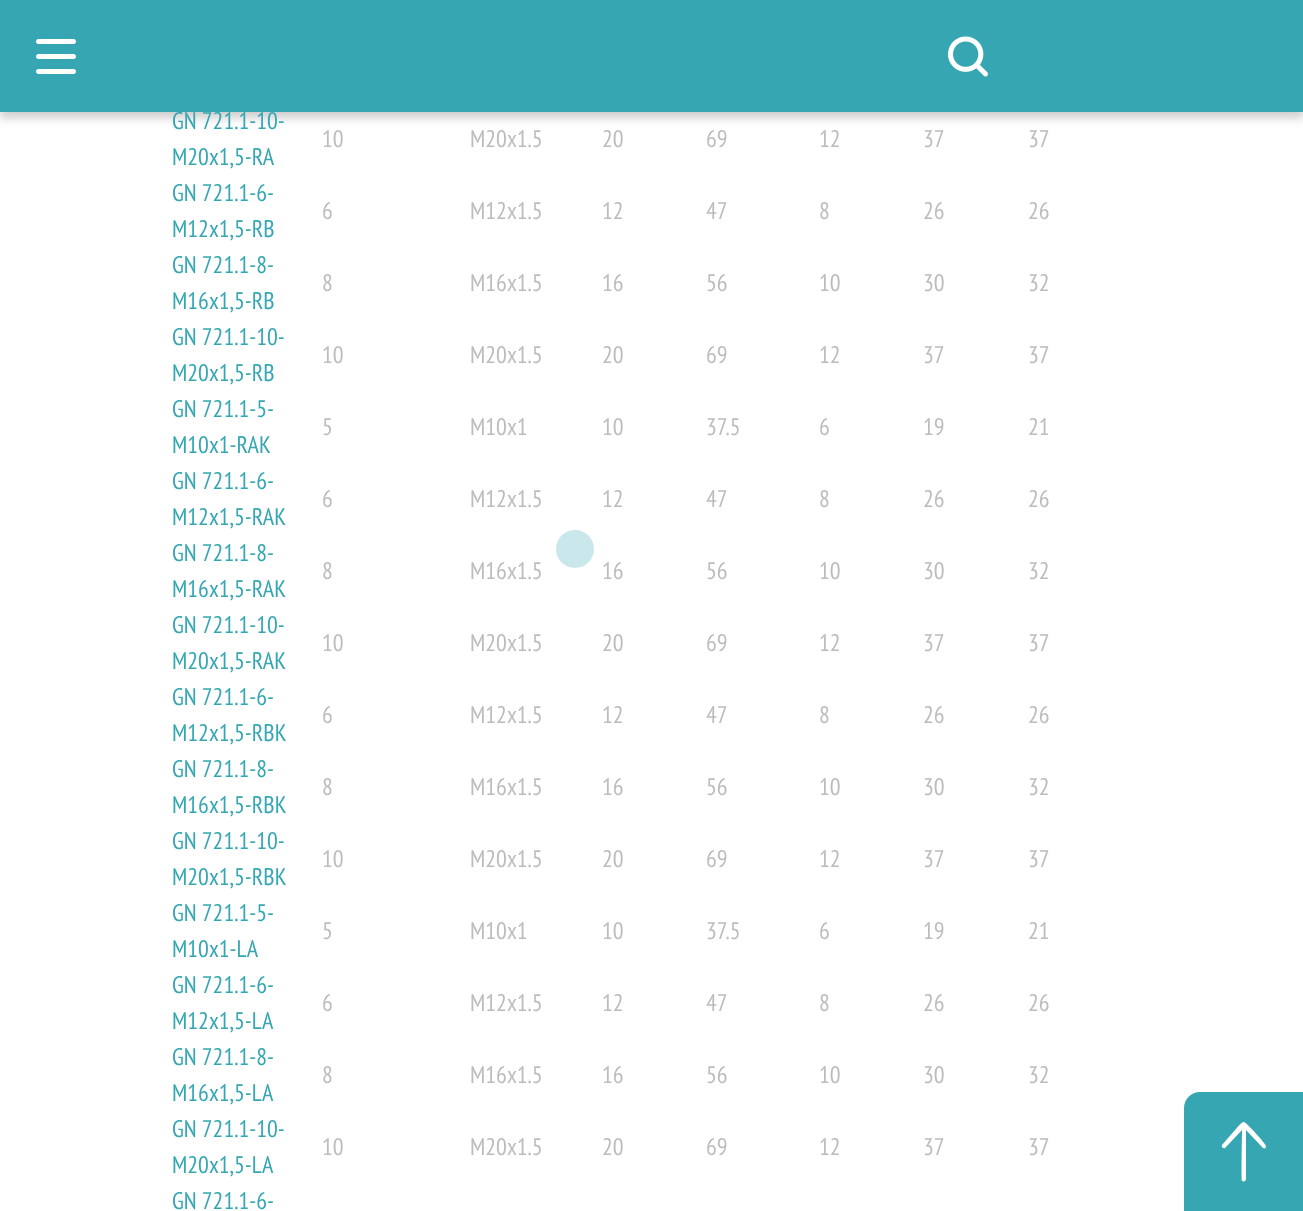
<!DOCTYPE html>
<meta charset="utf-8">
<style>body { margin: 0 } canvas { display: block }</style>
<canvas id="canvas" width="1303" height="1211"></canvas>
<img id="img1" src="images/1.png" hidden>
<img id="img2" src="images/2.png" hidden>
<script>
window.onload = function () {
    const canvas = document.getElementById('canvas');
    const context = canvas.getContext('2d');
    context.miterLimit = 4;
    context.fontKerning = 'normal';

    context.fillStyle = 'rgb(255, 255, 255)';
    context.fillRect(0, 0, 1303, 1211);
    context.fillStyle = 'rgba(54, 54, 54, 0.25)';
    context.filter = 'blur(5px)';
    context.beginPath();
    context.rect(0, 6, 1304, 112);
    context.fill();
    context.filter = 'none';
    context.fillStyle = 'rgb(54, 167, 178)';
    context.fillRect(0, 0, 1303, 112);
    context.drawImage(document.getElementById('img1'), 36, 39, 40, 35);
    context.drawImage(document.getElementById('img2'), 948, 36, 40, 41);
    context.fillStyle = 'rgb(202, 232, 235)';
    context.beginPath();
    context.arc(575, 549, 19, 0, 2 * Math.PI);
    context.fill();
    context.fillStyle = 'rgb(54, 167, 178)';
    context.beginPath();
    context.moveTo(1200, 1092);
    context.lineTo(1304, 1092);
    context.lineTo(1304, 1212);
    context.lineTo(1184, 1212);
    context.lineTo(1184, 1108);
    context.bezierCurveTo(1184, 1099, 1191, 1092, 1200, 1092);
    context.closePath();
    context.fill();
    context.fillStyle = 'rgb(255, 255, 255)';
    context.beginPath();
    context.moveTo(1242, 1181);
    context.bezierCurveTo(1244, 1182, 1246, 1181, 1246, 1179);
    context.lineTo(1246, 1130);
    context.lineTo(1263, 1148);
    context.bezierCurveTo(1265, 1149, 1266, 1148, 1266, 1146);
    context.bezierCurveTo(1266, 1144, 1246, 1122, 1244, 1122);
    context.bezierCurveTo(1242, 1121, 1236, 1129, 1235, 1130);
    context.lineTo(1222, 1145);
    context.bezierCurveTo(1221, 1146, 1223, 1149, 1225, 1148);
    context.lineTo(1242, 1130);
    context.bezierCurveTo(1242, 1136, 1241, 1179, 1242, 1181);
    context.closePath();
    context.fill();
    context.font = '24px PT Sans Narrow';
    context.fillStyle = 'rgb(54, 167, 178)';
    context.fillText('GN 721.1-10-', 172, 129);
    context.fillText('M20x1,5-RA', 172, 165);
    context.fillStyle = 'rgb(188, 188, 188)';
    context.fillText('10', 322, 147);
    context.fillText('M20x1.5', 470, 147);
    context.fillText('20', 602, 147);
    context.fillText('69', 706, 147);
    context.fillText('12', 819, 147);
    context.fillText('37', 923, 147);
    context.fillText('37', 1028, 147);
    context.fillStyle = 'rgb(54, 167, 178)';
    context.fillText('GN 721.1-6-', 172, 201);
    context.fillText('M12x1,5-RB', 172, 237);
    context.fillStyle = 'rgb(188, 188, 188)';
    context.fillText('6', 322, 219);
    context.fillText('M12x1.5', 470, 219);
    context.fillText('12', 602, 219);
    context.fillText('47', 706, 219);
    context.fillText('8', 819, 219);
    context.fillText('26', 923, 219);
    context.fillText('26', 1028, 219);
    context.fillStyle = 'rgb(54, 167, 178)';
    context.fillText('GN 721.1-8-', 172, 273);
    context.fillText('M16x1,5-RB', 172, 309);
    context.fillStyle = 'rgb(188, 188, 188)';
    context.fillText('8', 322, 291);
    context.fillText('M16x1.5', 470, 291);
    context.fillText('16', 602, 291);
    context.fillText('56', 706, 291);
    context.fillText('10', 819, 291);
    context.fillText('30', 923, 291);
    context.fillText('32', 1028, 291);
    context.fillStyle = 'rgb(54, 167, 178)';
    context.fillText('GN 721.1-10-', 172, 345);
    context.fillText('M20x1,5-RB', 172, 381);
    context.fillStyle = 'rgb(188, 188, 188)';
    context.fillText('10', 322, 363);
    context.fillText('M20x1.5', 470, 363);
    context.fillText('20', 602, 363);
    context.fillText('69', 706, 363);
    context.fillText('12', 819, 363);
    context.fillText('37', 923, 363);
    context.fillText('37', 1028, 363);
    context.fillStyle = 'rgb(54, 167, 178)';
    context.fillText('GN 721.1-5-', 172, 417);
    context.fillText('M10x1-RAK', 172, 453);
    context.fillStyle = 'rgb(188, 188, 188)';
    context.fillText('5', 322, 435);
    context.fillText('M10x1', 470, 435);
    context.fillText('10', 602, 435);
    context.fillText('37.5', 706, 435);
    context.fillText('6', 819, 435);
    context.fillText('19', 923, 435);
    context.fillText('21', 1028, 435);
    context.fillStyle = 'rgb(54, 167, 178)';
    context.fillText('GN 721.1-6-', 172, 489);
    context.fillText('M12x1,5-RAK', 172, 525);
    context.fillStyle = 'rgb(188, 188, 188)';
    context.fillText('6', 322, 507);
    context.fillText('M12x1.5', 470, 507);
    context.fillText('12', 602, 507);
    context.fillText('47', 706, 507);
    context.fillText('8', 819, 507);
    context.fillText('26', 923, 507);
    context.fillText('26', 1028, 507);
    context.fillStyle = 'rgb(54, 167, 178)';
    context.fillText('GN 721.1-8-', 172, 561);
    context.fillText('M16x1,5-RAK', 172, 597);
    context.fillStyle = 'rgb(188, 188, 188)';
    context.fillText('8', 322, 579);
    context.fillText('M16x1.5', 470, 579);
    context.fillText('16', 602, 579);
    context.fillText('56', 706, 579);
    context.fillText('10', 819, 579);
    context.fillText('30', 923, 579);
    context.fillText('32', 1028, 579);
    context.fillStyle = 'rgb(54, 167, 178)';
    context.fillText('GN 721.1-10-', 172, 633);
    context.fillText('M20x1,5-RAK', 172, 669);
    context.fillStyle = 'rgb(188, 188, 188)';
    context.fillText('10', 322, 651);
    context.fillText('M20x1.5', 470, 651);
    context.fillText('20', 602, 651);
    context.fillText('69', 706, 651);
    context.fillText('12', 819, 651);
    context.fillText('37', 923, 651);
    context.fillText('37', 1028, 651);
    context.fillStyle = 'rgb(54, 167, 178)';
    context.fillText('GN 721.1-6-', 172, 705);
    context.fillText('M12x1,5-RBK', 172, 741);
    context.fillStyle = 'rgb(188, 188, 188)';
    context.fillText('6', 322, 723);
    context.fillText('M12x1.5', 470, 723);
    context.fillText('12', 602, 723);
    context.fillText('47', 706, 723);
    context.fillText('8', 819, 723);
    context.fillText('26', 923, 723);
    context.fillText('26', 1028, 723);
    context.fillStyle = 'rgb(54, 167, 178)';
    context.fillText('GN 721.1-8-', 172, 777);
    context.fillText('M16x1,5-RBK', 172, 813);
    context.fillStyle = 'rgb(188, 188, 188)';
    context.fillText('8', 322, 795);
    context.fillText('M16x1.5', 470, 795);
    context.fillText('16', 602, 795);
    context.fillText('56', 706, 795);
    context.fillText('10', 819, 795);
    context.fillText('30', 923, 795);
    context.fillText('32', 1028, 795);
    context.fillStyle = 'rgb(54, 167, 178)';
    context.fillText('GN 721.1-10-', 172, 849);
    context.fillText('M20x1,5-RBK', 172, 885);
    context.fillStyle = 'rgb(188, 188, 188)';
    context.fillText('10', 322, 867);
    context.fillText('M20x1.5', 470, 867);
    context.fillText('20', 602, 867);
    context.fillText('69', 706, 867);
    context.fillText('12', 819, 867);
    context.fillText('37', 923, 867);
    context.fillText('37', 1028, 867);
    context.fillStyle = 'rgb(54, 167, 178)';
    context.fillText('GN 721.1-5-', 172, 921);
    context.fillText('M10x1-LA', 172, 957);
    context.fillStyle = 'rgb(188, 188, 188)';
    context.fillText('5', 322, 939);
    context.fillText('M10x1', 470, 939);
    context.fillText('10', 602, 939);
    context.fillText('37.5', 706, 939);
    context.fillText('6', 819, 939);
    context.fillText('19', 923, 939);
    context.fillText('21', 1028, 939);
    context.fillStyle = 'rgb(54, 167, 178)';
    context.fillText('GN 721.1-6-', 172, 993);
    context.fillText('M12x1,5-LA', 172, 1029);
    context.fillStyle = 'rgb(188, 188, 188)';
    context.fillText('6', 322, 1011);
    context.fillText('M12x1.5', 470, 1011);
    context.fillText('12', 602, 1011);
    context.fillText('47', 706, 1011);
    context.fillText('8', 819, 1011);
    context.fillText('26', 923, 1011);
    context.fillText('26', 1028, 1011);
    context.fillStyle = 'rgb(54, 167, 178)';
    context.fillText('GN 721.1-8-', 172, 1065);
    context.fillText('M16x1,5-LA', 172, 1101);
    context.fillStyle = 'rgb(188, 188, 188)';
    context.fillText('8', 322, 1083);
    context.fillText('M16x1.5', 470, 1083);
    context.fillText('16', 602, 1083);
    context.fillText('56', 706, 1083);
    context.fillText('10', 819, 1083);
    context.fillText('30', 923, 1083);
    context.fillText('32', 1028, 1083);
    context.fillStyle = 'rgb(54, 167, 178)';
    context.fillText('GN 721.1-10-', 172, 1137);
    context.fillText('M20x1,5-LA', 172, 1173);
    context.fillStyle = 'rgb(188, 188, 188)';
    context.fillText('10', 322, 1155);
    context.fillText('M20x1.5', 470, 1155);
    context.fillText('20', 602, 1155);
    context.fillText('69', 706, 1155);
    context.fillText('12', 819, 1155);
    context.fillText('37', 923, 1155);
    context.fillText('37', 1028, 1155);
    context.fillStyle = 'rgb(54, 167, 178)';
    context.fillText('GN 721.1-6-', 172, 1209);
};
</script>
